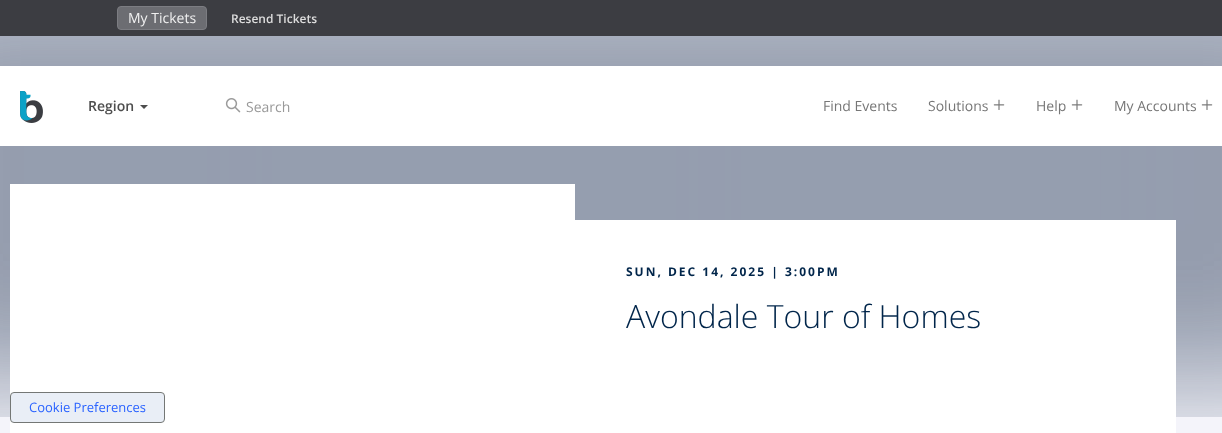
<!DOCTYPE html>
<meta charset="utf-8">
<style>body { margin: 0 } canvas { display: block }</style>
<canvas id="canvas" width="1222" height="433"></canvas>
<img id="img1" src="images/1.png" hidden>
<img id="img2" src="images/2.png" hidden>
<img id="img3" src="images/3.png" hidden>
<img id="img4" src="images/4.png" hidden>
<script>
window.onload = function () {
    const canvas = document.getElementById('canvas');
    const context = canvas.getContext('2d');
    context.miterLimit = 4;
    context.fontKerning = 'normal';

    context.fillStyle = 'rgb(244, 244, 250)';
    context.fillRect(0, 0, 1222, 433);
    context.fillStyle = 'rgb(60, 61, 66)';
    context.fillRect(0, 0, 1222, 36);
    context.fillStyle = 'rgb(108, 109, 114)';
    context.beginPath();
    context.roundRect(117.5, 6.5, 89, 23, 3.5);
    context.fill();
    context.strokeStyle = 'rgb(124, 125, 130)';
    context.stroke();
    context.drawImage(document.getElementById('img1'), 0, 36, 1222, 381);
    context.fillStyle = 'rgb(255, 255, 255)';
    context.fillRect(0, 66, 1222, 80);
    context.drawImage(document.getElementById('img2'), 20, 91, 23, 32);
    context.fillStyle = 'rgb(77, 77, 77)';
    context.beginPath();
    context.moveTo(140, 105);
    context.lineTo(148, 105);
    context.lineTo(144, 109);
    context.closePath();
    context.fill();
    context.drawImage(document.getElementById('img3'), 225, 98, 16, 15);
    context.drawImage(document.getElementById('img4'), 993, 99, 12, 11);
    context.drawImage(document.getElementById('img4'), 1071, 99, 12, 11);
    context.drawImage(document.getElementById('img4'), 1201, 99, 12, 11);
    context.fillStyle = 'rgb(255, 255, 255)';
    context.fillRect(575, 220, 601, 213);
    context.fillRect(10, 184, 565, 249);
    context.fillStyle = 'rgb(233, 238, 246)';
    context.beginPath();
    context.roundRect(10.5, 392.5, 154, 30, 3.5);
    context.fill();
    context.strokeStyle = 'rgb(116, 119, 117)';
    context.stroke();
    context.font = '14px Open Sans';
    context.fillStyle = 'rgb(240, 240, 240)';
    context.fillText('My Tickets', 128, 23);
    context.font = '600 12px Open Sans';
    context.fillStyle = 'rgb(221, 221, 221)';
    context.fillText('Resend Tickets', 231, 23);
    context.font = '600 14px Open Sans';
    context.fillStyle = 'rgb(77, 77, 77)';
    context.fillText('Region', 88, 111);
    context.font = '14px Open Sans';
    context.fillStyle = 'rgb(153, 153, 153)';
    context.fillText('Search', 246, 112);
    context.fillStyle = 'rgb(119, 119, 119)';
    context.fillText('Find Events', 823, 111);
    context.fillText('Solutions', 928, 111);
    context.fillText('Help', 1036, 111);
    context.fillText('My Accounts', 1114, 111);
    context.letterSpacing = '2px';
    context.font = 'bold 12px Open Sans';
    context.fillStyle = 'rgb(0, 37, 74)';
    context.fillText('SUN, DEC 14, 2025 | 3:00PM', 626, 276);
    context.letterSpacing = '0px';
    context.font = '300 32px Open Sans';
    context.fillText('Avondale Tour of Homes', 626, 328);
    context.font = '13px Open Sans';
    context.fillStyle = 'rgb(41, 98, 255)';
    context.fillText('Cookie Preferences', 29, 412);
};
</script>
